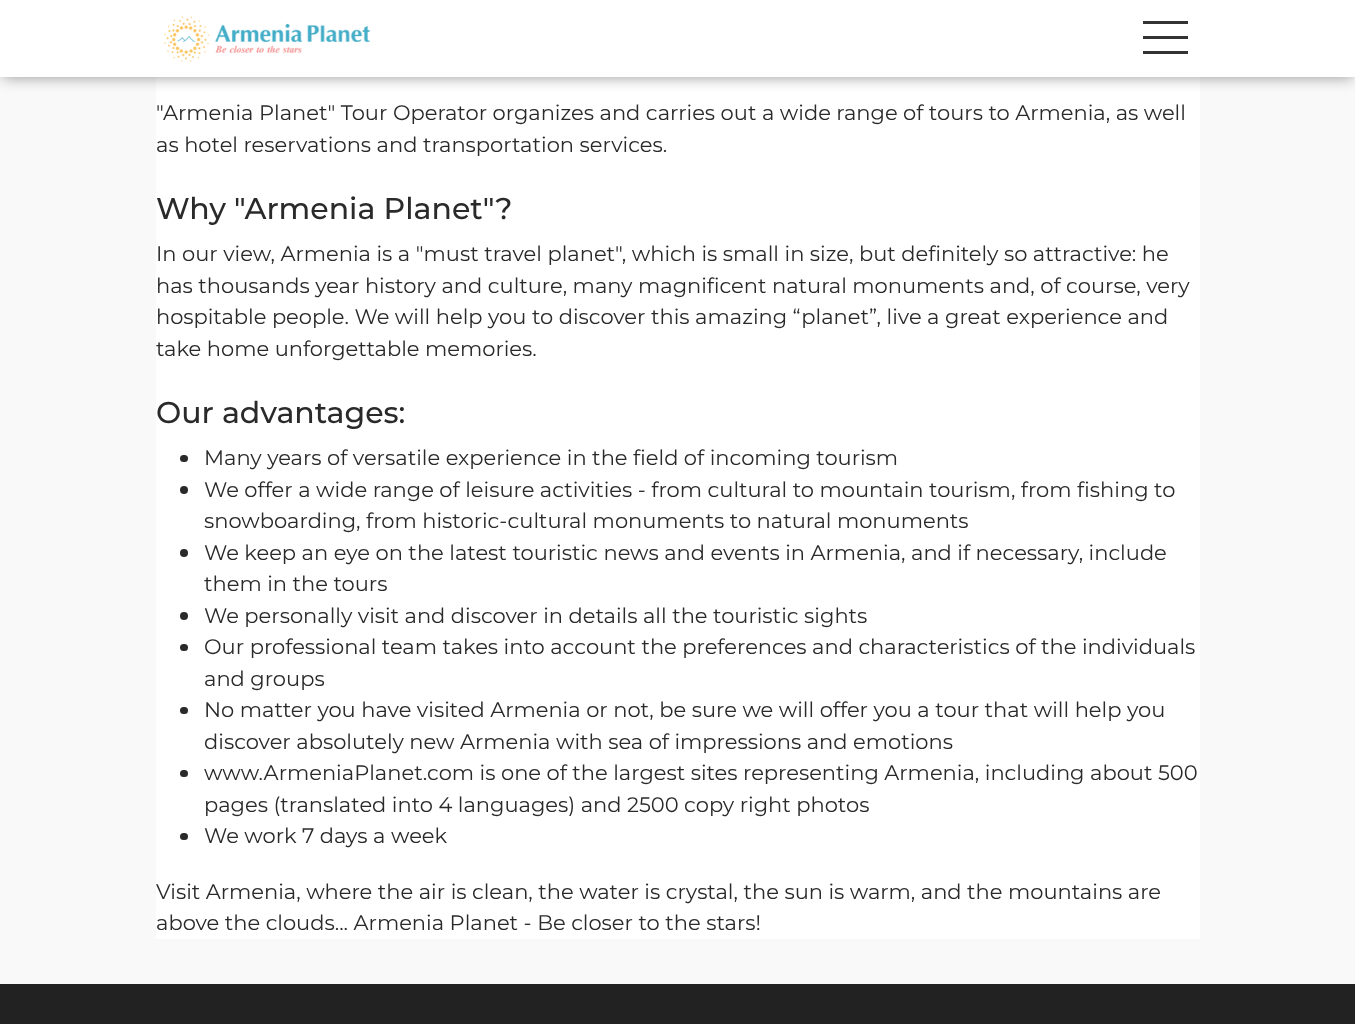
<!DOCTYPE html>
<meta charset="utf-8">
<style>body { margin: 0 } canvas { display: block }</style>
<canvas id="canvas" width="1355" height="1024"></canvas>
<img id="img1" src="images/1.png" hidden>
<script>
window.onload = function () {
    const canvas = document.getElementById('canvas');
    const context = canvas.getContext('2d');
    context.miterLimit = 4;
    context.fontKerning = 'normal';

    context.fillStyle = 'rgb(249, 249, 249)';
    context.fillRect(0, 0, 1355, 1024);
    context.fillStyle = 'rgb(255, 255, 255)';
    context.fillRect(156, 77, 1044, 862);
    context.fillStyle = 'rgba(0, 0, 0, 0.41)';
    context.filter = 'blur(7.5px)';
    context.beginPath();
    context.rect(3, 6, 1350, 71);
    context.fill();
    context.filter = 'none';
    context.fillStyle = 'rgb(255, 255, 255)';
    context.fillRect(0, 0, 1355, 77);
    context.drawImage(document.getElementById('img1'), 164, 16, 206, 46);
    context.fillStyle = 'rgb(51, 51, 51)';
    context.fillRect(1143, 36, 45, 3);
    context.fillRect(1143, 21, 45, 3);
    context.fillRect(1143, 51, 45, 3);
    context.fillStyle = 'rgb(42, 42, 42)';
    context.beginPath();
    context.roundRect(180, 455, 8, 7, 3.5);
    context.fill();
    context.beginPath();
    context.arc(184, 490, 4, 0, 2 * Math.PI);
    context.fill();
    context.beginPath();
    context.arc(184, 553, 4, 0, 2 * Math.PI);
    context.fill();
    context.beginPath();
    context.arc(184, 616, 4, 0, 2 * Math.PI);
    context.fill();
    context.beginPath();
    context.roundRect(180, 644, 8, 7, 3.5);
    context.fill();
    context.beginPath();
    context.roundRect(180, 707, 8, 7, 3.5);
    context.fill();
    context.beginPath();
    context.roundRect(180, 770, 8, 7, 3.5);
    context.fill();
    context.beginPath();
    context.roundRect(180, 833, 8, 7, 3.5);
    context.fill();
    context.fillStyle = 'rgb(34, 34, 34)';
    context.fillRect(0, 984, 1355, 40);
    context.font = '21px Montserrat';
    context.fillStyle = 'rgb(42, 42, 42)';
    context.fillText('"Armenia Planet" Tour Operator organizes and carries out a wide range of tours to Armenia, as well', 156, 120);
    context.fillText('as hotel reservations and transportation services.', 156, 152);
    context.font = '500 30px Montserrat';
    context.fillText('Why "Armenia Planet"?', 156, 219);
    context.font = '21px Montserrat';
    context.fillText('In our view, Armenia is a "must travel planet", which is small in size, but definitely so attractive: he', 156, 261);
    context.fillText('has thousands year history and culture, many magnificent natural monuments and, of course, very', 156, 293);
    context.fillText('hospitable people. We will help you to discover this amazing “planet”, live a great experience and', 156, 324);
    context.fillText('take home unforgettable memories.', 156, 356);
    context.font = '500 30px Montserrat';
    context.fillText('Our advantages:', 156, 423);
    context.font = '21px Montserrat';
    context.fillText('Many years of versatile experience in the field of incoming tourism', 204, 465);
    context.fillText('We offer a wide range of leisure activities - from cultural to mountain tourism, from fishing to', 204, 497);
    context.fillText('snowboarding, from historic-cultural monuments to natural monuments', 204, 528);
    context.fillText('We keep an eye on the latest touristic news and events in Armenia, and if necessary, include', 204, 560);
    context.fillText('them in the tours', 204, 591);
    context.fillText('We personally visit and discover in details all the touristic sights', 204, 623);
    context.fillText('Our professional team takes into account the preferences and characteristics of the individuals', 204, 654);
    context.fillText('and groups', 204, 686);
    context.fillText('No matter you have visited Armenia or not, be sure we will offer you a tour that will help you', 204, 717);
    context.fillText('discover absolutely new Armenia with sea of impressions and emotions', 204, 749);
    context.fillText('www.ArmeniaPlanet.com is one of the largest sites representing Armenia, including about 500', 204, 780);
    context.fillText('pages (translated into 4 languages) and 2500 copy right photos', 204, 812);
    context.fillText('We work 7 days a week', 204, 843);
    context.fillText('Visit Armenia, where the air is clean, the water is crystal, the sun is warm, and the mountains are', 156, 899);
    context.fillText('above the clouds... Armenia Planet - Be closer to the stars!', 156, 930);
};
</script>
